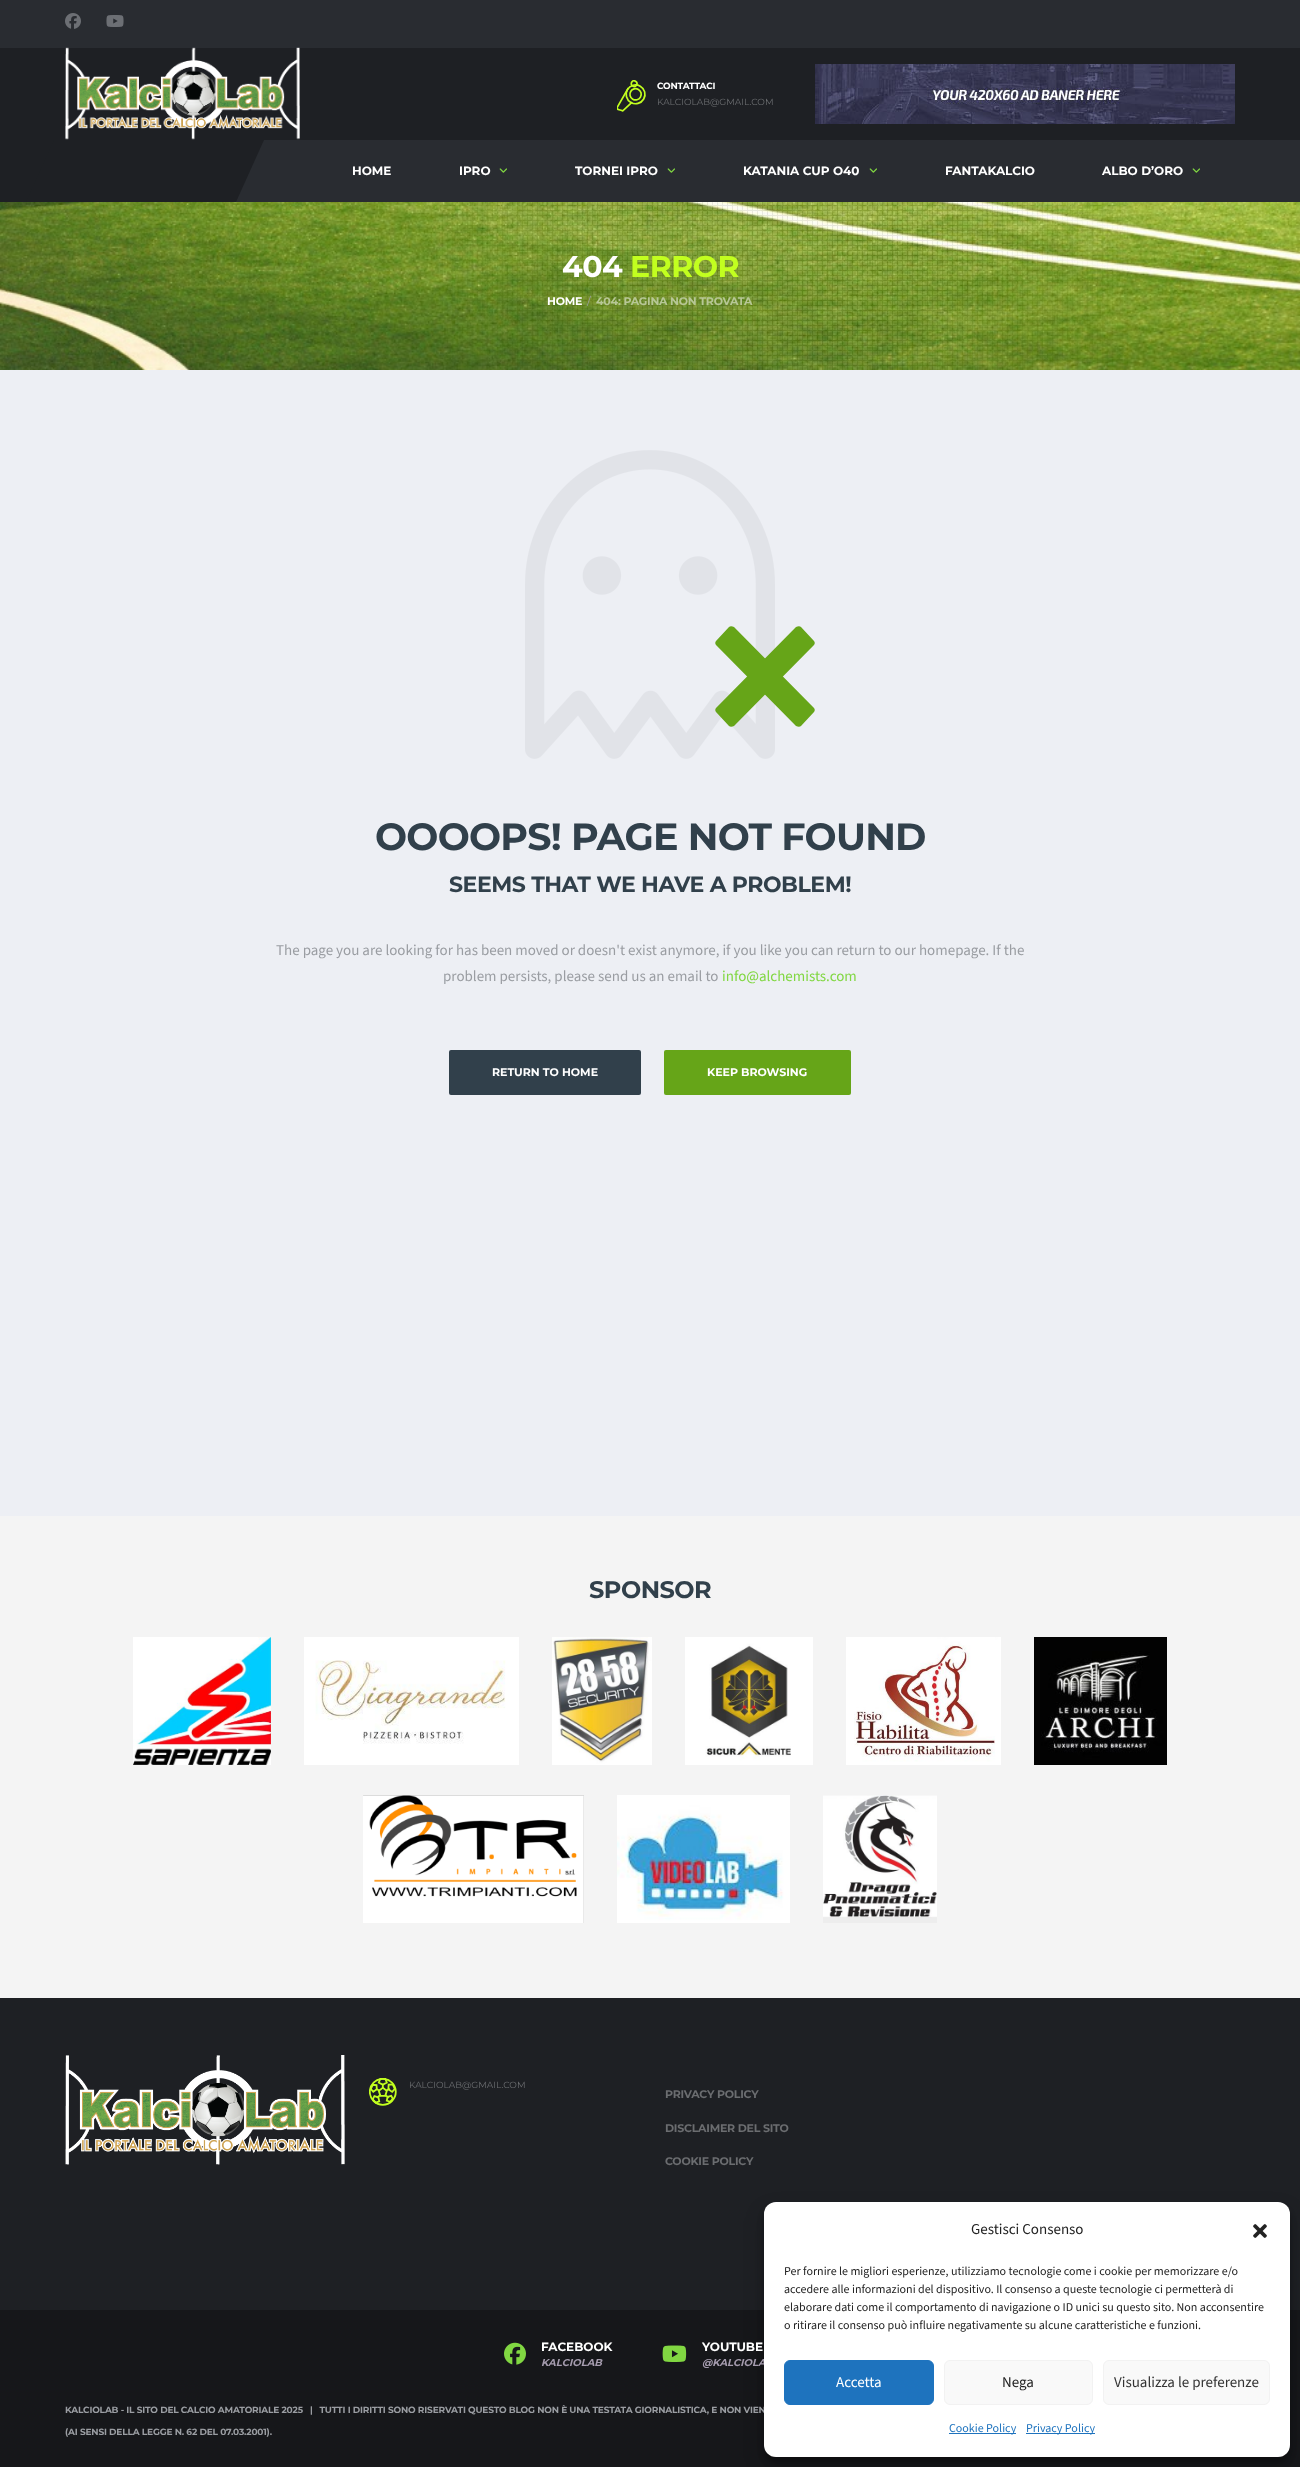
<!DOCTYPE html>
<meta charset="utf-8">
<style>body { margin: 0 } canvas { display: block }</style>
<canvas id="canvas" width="1300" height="2467"></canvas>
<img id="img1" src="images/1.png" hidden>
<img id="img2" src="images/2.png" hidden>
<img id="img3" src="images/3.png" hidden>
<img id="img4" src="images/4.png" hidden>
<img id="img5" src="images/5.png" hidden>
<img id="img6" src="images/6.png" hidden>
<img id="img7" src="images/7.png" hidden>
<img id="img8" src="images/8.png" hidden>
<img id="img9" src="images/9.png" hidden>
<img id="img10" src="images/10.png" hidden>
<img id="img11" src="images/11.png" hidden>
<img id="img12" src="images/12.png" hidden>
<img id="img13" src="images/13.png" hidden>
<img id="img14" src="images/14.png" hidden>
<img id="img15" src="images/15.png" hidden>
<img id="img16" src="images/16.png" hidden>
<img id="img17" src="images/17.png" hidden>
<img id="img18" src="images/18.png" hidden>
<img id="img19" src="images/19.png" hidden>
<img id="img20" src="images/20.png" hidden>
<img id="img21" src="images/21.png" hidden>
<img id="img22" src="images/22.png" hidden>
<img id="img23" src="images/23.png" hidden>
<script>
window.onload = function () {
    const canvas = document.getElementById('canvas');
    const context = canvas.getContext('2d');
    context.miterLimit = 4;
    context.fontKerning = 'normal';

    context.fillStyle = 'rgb(237, 239, 244)';
    context.fillRect(0, 0, 1300, 2467);
    context.fillStyle = 'rgb(30, 32, 36)';
    context.fillRect(0, 48, 1300, 154);
    context.fillStyle = 'rgb(41, 44, 49)';
    context.fillRect(0, 0, 1300, 48);
    context.drawImage(document.getElementById('img1'), 65, 13, 16, 16);
    context.drawImage(document.getElementById('img2'), 106, 15, 18, 12);
    context.drawImage(document.getElementById('img3'), 617, 80, 29, 32);
    context.drawImage(document.getElementById('img4'), 815, 64, 420, 60);
    context.fillRect(236, 140, 1064, 62);
    context.drawImage(document.getElementById('img5'), 65, 47, 235, 93);
    context.fillStyle = 'rgb(30, 32, 36)';
    context.beginPath();
    context.moveTo(54, 140);
    context.lineTo(264, 140);
    context.lineTo(236, 202);
    context.lineTo(26, 202);
    context.closePath();
    context.fill();
    context.drawImage(document.getElementById('img6'), 499, 168, 8, 5);
    context.drawImage(document.getElementById('img6'), 667, 168, 8, 5);
    context.drawImage(document.getElementById('img6'), 869, 168, 8, 5);
    context.drawImage(document.getElementById('img6'), 1192, 168, 8, 5);
    context.drawImage(document.getElementById('img7'), 0, 202, 1300, 168);
    context.drawImage(document.getElementById('img8'), 438, 202, 692, 168);
    context.drawImage(document.getElementById('img9'), 525, 450, 250, 309);
    context.fillStyle = 'rgb(102, 165, 24)';
    context.beginPath();
    context.moveTo(734, 627);
    context.lineTo(814, 708);
    context.bezierCurveTo(815, 709, 815, 711, 814, 712);
    context.lineTo(801, 726);
    context.bezierCurveTo(800, 727, 798, 727, 796, 726);
    context.lineTo(716, 645);
    context.bezierCurveTo(715, 644, 715, 642, 716, 641);
    context.lineTo(729, 627);
    context.bezierCurveTo(730, 626, 732, 626, 734, 627);
    context.closePath();
    context.fill();
    context.beginPath();
    context.moveTo(716, 708);
    context.lineTo(796, 627);
    context.bezierCurveTo(798, 626, 800, 626, 801, 627);
    context.lineTo(814, 641);
    context.bezierCurveTo(815, 642, 815, 644, 814, 645);
    context.lineTo(734, 726);
    context.bezierCurveTo(732, 727, 730, 727, 729, 726);
    context.lineTo(716, 712);
    context.bezierCurveTo(715, 711, 715, 709, 716, 708);
    context.closePath();
    context.fill();
    context.fillStyle = 'rgb(49, 64, 75)';
    context.beginPath();
    context.roundRect(449, 1050, 192, 45, 2);
    context.fill();
    context.fillStyle = 'rgb(102, 165, 24)';
    context.beginPath();
    context.roundRect(664, 1050, 187, 45, 2);
    context.fill();
    context.fillStyle = 'rgb(244, 244, 244)';
    context.fillRect(0, 1516, 1300, 482);
    context.drawImage(document.getElementById('img10'), 133, 1637, 138, 128);
    context.drawImage(document.getElementById('img11'), 304, 1637, 215, 128);
    context.drawImage(document.getElementById('img12'), 552, 1637, 100, 128);
    context.drawImage(document.getElementById('img13'), 685, 1637, 128, 128);
    context.drawImage(document.getElementById('img14'), 846, 1637, 155, 128);
    context.drawImage(document.getElementById('img15'), 1034, 1637, 133, 128);
    context.drawImage(document.getElementById('img16'), 363, 1795, 221, 128);
    context.drawImage(document.getElementById('img17'), 617, 1795, 173, 128);
    context.drawImage(document.getElementById('img18'), 823, 1795, 114, 128);
    context.fillStyle = 'rgb(30, 32, 36)';
    context.fillRect(0, 1998, 1300, 312);
    context.drawImage(document.getElementById('img19'), 65, 2055, 280, 110);
    context.drawImage(document.getElementById('img20'), 369, 2078, 28, 28);
    context.fillStyle = 'rgb(22, 23, 26)';
    context.fillRect(0, 2310, 1300, 157);
    context.drawImage(document.getElementById('img21'), 504, 2342, 22, 23);
    context.drawImage(document.getElementById('img22'), 662, 2345, 25, 17);
    context.fillStyle = 'rgba(0, 0, 0, 0.23)';
    context.filter = 'blur(3px)';
    context.beginPath();
    context.roundRect(764, 2208, 526, 255, 12);
    context.fill();
    context.filter = 'none';
    context.fillStyle = 'rgba(0, 0, 0, 0.19)';
    context.filter = 'blur(10px)';
    context.beginPath();
    context.roundRect(764, 2212, 526, 255, 12);
    context.fill();
    context.filter = 'none';
    context.letterSpacing = '-0.18px';
    context.font = 'bold 9px Montserrat';
    context.fillStyle = 'rgb(255, 255, 255)';
    context.fillText('CONTATTACI', 657, 89);
    context.letterSpacing = '0px';
    context.font = '9px Montserrat';
    context.fillStyle = 'rgb(107, 109, 112)';
    context.fillText('KALCIOLAB@GMAIL.COM', 657, 105);
    context.font = 'bold 12px Montserrat';
    context.fillStyle = 'rgb(255, 255, 255)';
    context.fillText('HOME', 352, 175);
    context.fillText('IPRO', 459, 175);
    context.fillText('TORNEI IPRO', 575, 175);
    context.fillText('KATANIA CUP O40', 743, 175);
    context.fillText('FANTAKALCIO', 945, 175);
    context.fillText('ALBO D’ORO', 1102, 175);
    context.letterSpacing = '-0.5px';
    context.font = 'bold 30px Montserrat';
    context.fillText('404', 562, 277);
    context.fillStyle = 'rgb(194, 255, 31)';
    context.fillText('ERROR', 630, 277);
    context.letterSpacing = '-0.25px';
    context.font = 'bold 11px Montserrat';
    context.fillStyle = 'rgb(255, 255, 255)';
    context.fillText('HOME', 547, 305);
    context.font = '11px Montserrat';
    context.fillStyle = 'rgb(154, 157, 162)';
    context.fillText('/', 587, 305);
    context.font = 'bold 11px Montserrat';
    context.fillStyle = 'rgb(183, 199, 150)';
    context.fillText('404: PAGINA NON TROVATA', 596, 305);
    context.letterSpacing = '-0.75px';
    context.font = 'bold 38px Montserrat';
    context.fillStyle = 'rgb(49, 64, 75)';
    context.fillText('OOOOPS! PAGE NOT FOUND', 375, 850);
    context.letterSpacing = '-0.45px';
    context.font = 'bold 22px Montserrat';
    context.fillText('SEEMS THAT WE HAVE A PROBLEM!', 449, 892);
    context.letterSpacing = '0px';
    context.font = '15px "Source Sans 3"';
    context.fillStyle = 'rgb(154, 157, 162)';
    context.fillText('The page you are looking for has been moved or doesn\'t exist anymore, if you like you can return to our homepage. If the', 276, 955);
    context.fillText('problem persists, please send us an email to', 443, 981);
    context.fillStyle = 'rgb(129, 215, 66)';
    context.fillText('info@alchemists.com', 722, 981);
    context.font = 'bold 11px Montserrat';
    context.fillStyle = 'rgb(255, 255, 255)';
    context.fillText('RETURN TO HOME', 492, 1076);
    context.fillText('KEEP BROWSING', 707, 1076);
    context.letterSpacing = '-0.5px';
    context.font = 'bold 24px Montserrat';
    context.fillStyle = 'rgb(49, 64, 75)';
    context.fillText('SPONSOR', 589, 1598);
    context.letterSpacing = '0px';
    context.font = '9px Montserrat';
    context.fillStyle = 'rgb(107, 109, 112)';
    context.fillText('KALCIOLAB@GMAIL.COM', 409, 2088);
    context.letterSpacing = '-0.25px';
    context.font = 'bold 11px Montserrat';
    context.fillText('PRIVACY POLICY', 665, 2098);
    context.fillText('DISCLAIMER DEL SITO', 665, 2132);
    context.fillText('COOKIE POLICY', 665, 2165);
    context.letterSpacing = '0px';
    context.font = 'bold 12px Montserrat';
    context.fillStyle = 'rgb(255, 255, 255)';
    context.fillText('FACEBOOK', 541, 2351);
    context.font = 'italic bold 10px Montserrat';
    context.fillStyle = 'rgb(165, 156, 174)';
    context.fillText('KALCIOLAB', 541, 2366);
    context.font = 'bold 12px Montserrat';
    context.fillStyle = 'rgb(255, 255, 255)';
    context.fillText('YOUTUBE', 702, 2351);
    context.font = 'italic bold 10px Montserrat';
    context.fillStyle = 'rgb(165, 156, 174)';
    context.fillText('@KALCIOLA', 702, 2366);
    context.letterSpacing = '-0.18px';
    context.font = 'bold 9px Montserrat';
    context.fillStyle = 'rgb(154, 157, 162)';
    context.fillText('KALCIOLAB - IL SITO DEL CALCIO AMATORIALE 2025   |   TUTTI I DIRITTI SONO RISERVATI QUESTO BLOG NON È UNA TESTATA GIORNALISTICA, E NON VIEN', 65, 2413);
    context.fillText('(AI SENSI DELLA LEGGE N. 62 DEL 07.03.2001).', 65, 2435);
    context.fillStyle = 'rgb(255, 255, 255)';
    context.beginPath();
    context.roundRect(764, 2202, 526, 255, 12);
    context.fill();
    context.letterSpacing = '0px';
    context.font = '15px "Source Sans 3"';
    context.fillStyle = 'rgb(34, 34, 34)';
    context.fillText('Gestisci Consenso', 971, 2234);
    context.drawImage(document.getElementById('img23'), 1253, 2224, 14, 14);
    context.font = '12px "Source Sans 3"';
    context.fillText('Per fornire le migliori esperienze, utilizziamo tecnologie come i cookie per memorizzare e/o', 784, 2275);
    context.fillText('accedere alle informazioni del dispositivo. Il consenso a queste tecnologie ci permetterà di', 784, 2293);
    context.fillText('elaborare dati come il comportamento di navigazione o ID unici su questo sito. Non acconsentire', 784, 2311);
    context.fillText('o ritirare il consenso può influire negativamente su alcune caratteristiche e funzioni.', 784, 2329);
    context.fillStyle = 'rgb(30, 115, 190)';
    context.beginPath();
    context.roundRect(784.5, 2360.5, 149, 44, 5.5);
    context.fill();
    context.strokeStyle = 'rgb(30, 115, 190)';
    context.stroke();
    context.font = '15px "Source Sans 3"';
    context.fillStyle = 'rgb(255, 255, 255)';
    context.fillText('Accetta', 836, 2387);
    context.fillStyle = 'rgb(249, 249, 249)';
    context.beginPath();
    context.roundRect(944.5, 2360.5, 148, 44, 5.5);
    context.fill();
    context.strokeStyle = 'rgb(242, 242, 242)';
    context.stroke();
    context.fillStyle = 'rgb(34, 34, 34)';
    context.fillText('Nega', 1002, 2387);
    context.fillStyle = 'rgb(249, 249, 249)';
    context.beginPath();
    context.roundRect(1103.5, 2360.5, 166, 44, 5.5);
    context.fill();
    context.stroke();
    context.fillStyle = 'rgb(51, 51, 51)';
    context.fillText('Visualizza le preferenze', 1114, 2387);
    context.fillStyle = 'rgb(30, 115, 190)';
    context.fillRect(949, 2433, 67, 1);
    context.font = '12px "Source Sans 3"';
    context.fillText('Cookie Policy', 949, 2432);
    context.fillRect(1026, 2433, 69, 1);
    context.fillText('Privacy Policy', 1026, 2432);
};
</script>
